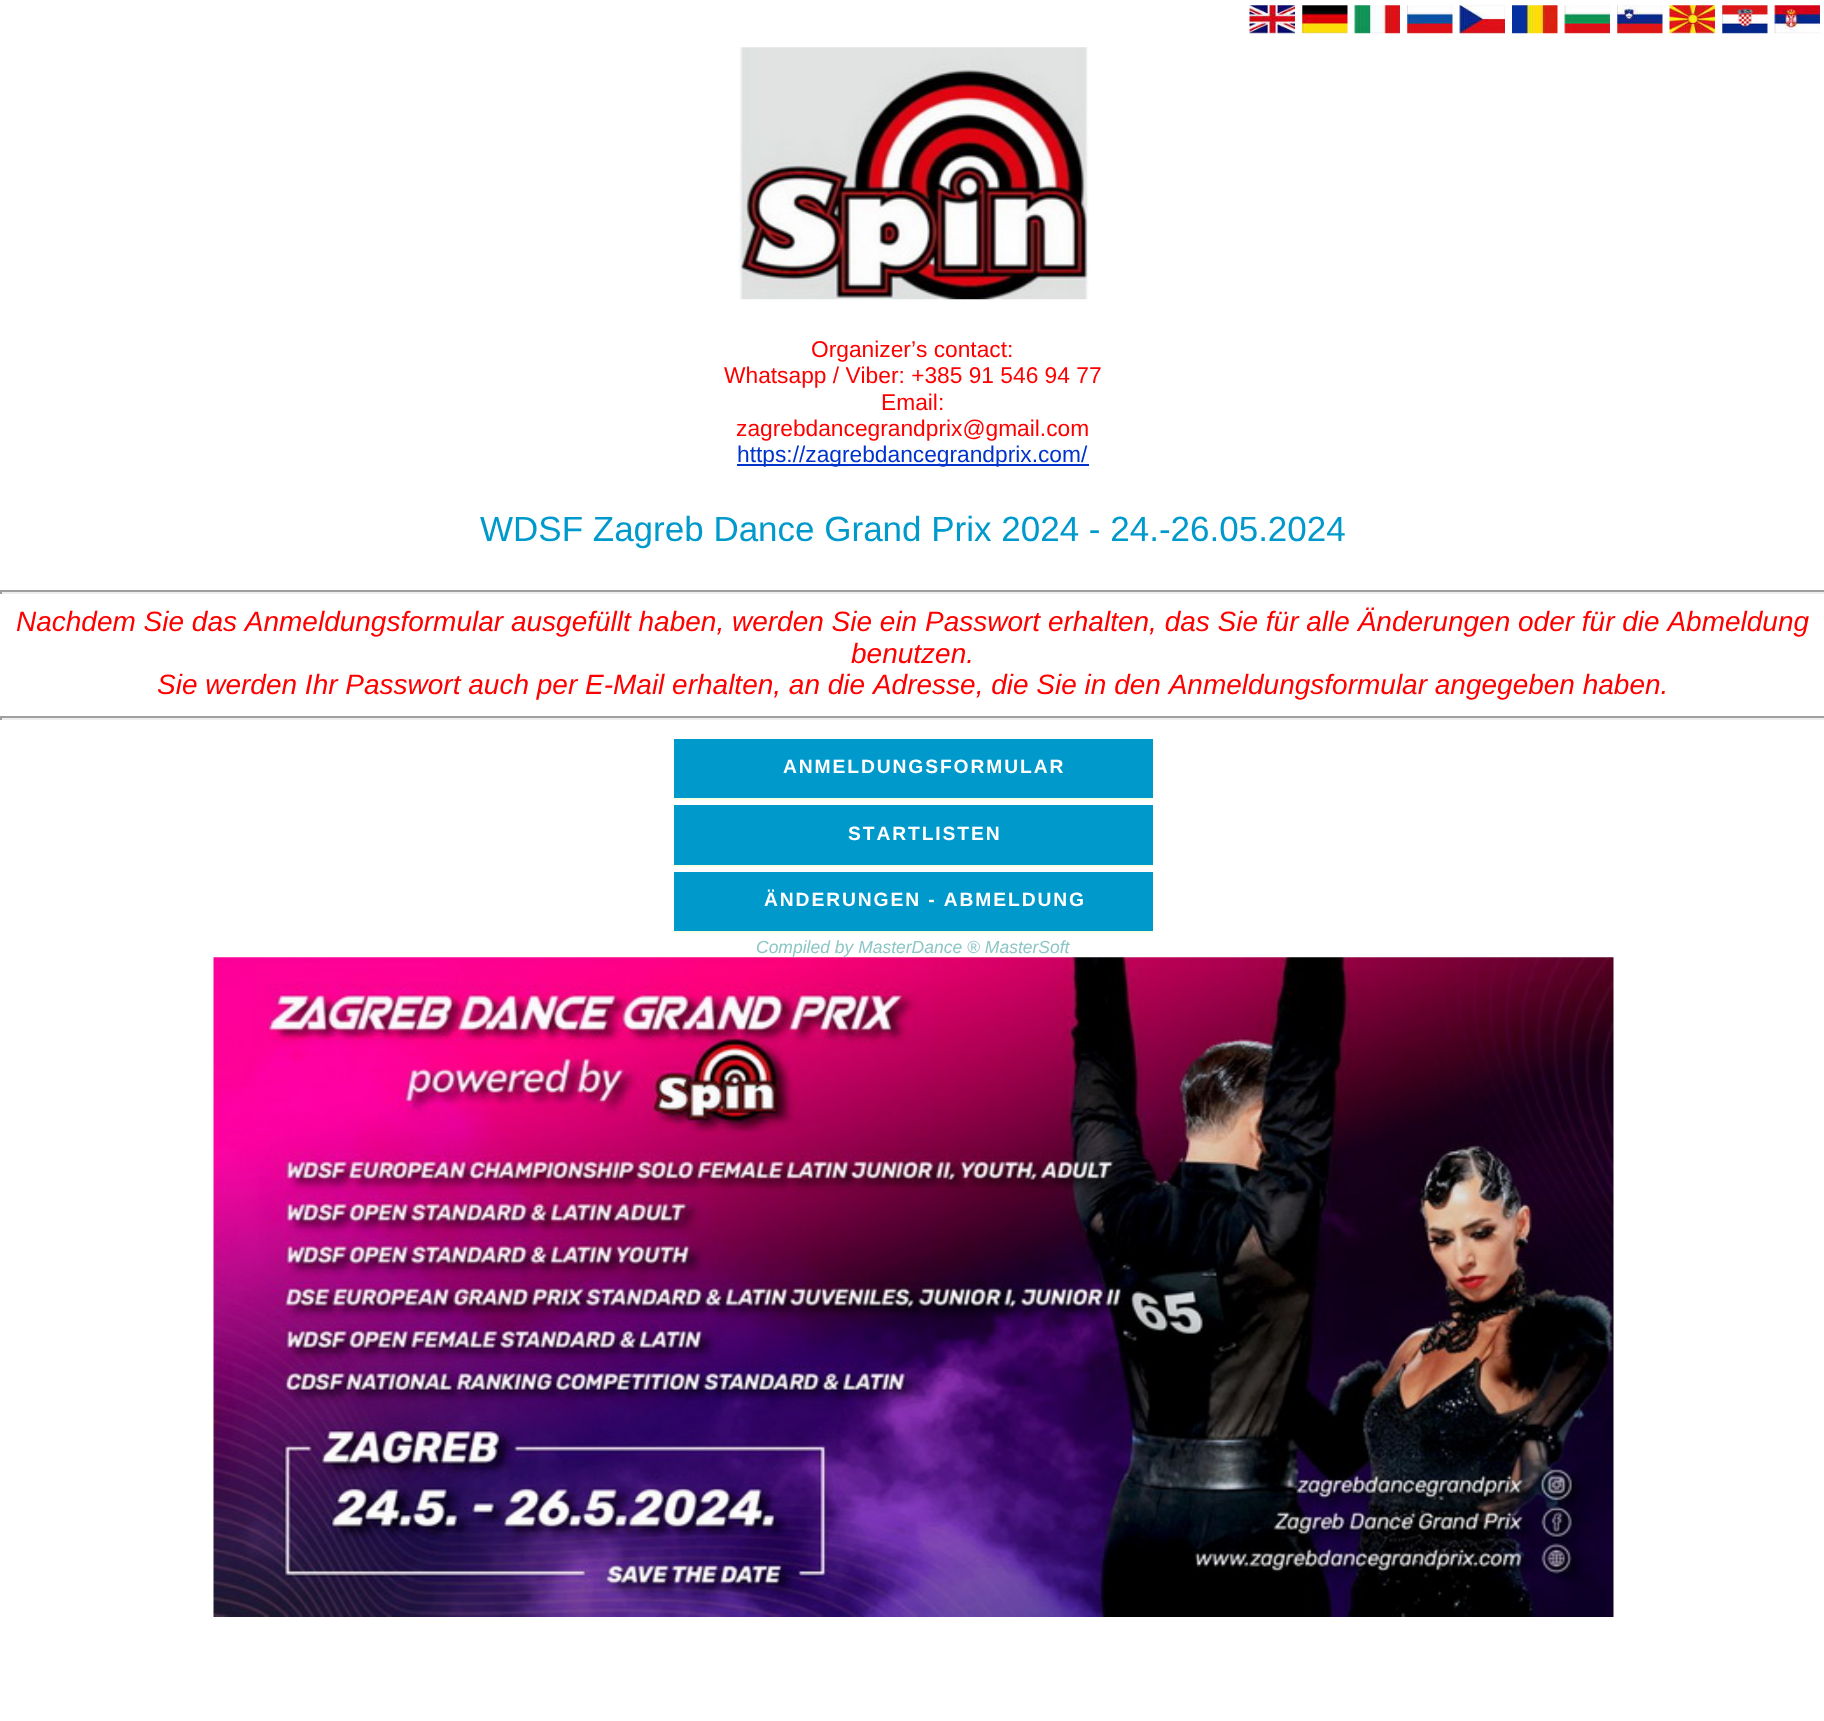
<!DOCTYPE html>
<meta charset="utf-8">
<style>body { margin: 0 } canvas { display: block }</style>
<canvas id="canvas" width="1824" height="1721"></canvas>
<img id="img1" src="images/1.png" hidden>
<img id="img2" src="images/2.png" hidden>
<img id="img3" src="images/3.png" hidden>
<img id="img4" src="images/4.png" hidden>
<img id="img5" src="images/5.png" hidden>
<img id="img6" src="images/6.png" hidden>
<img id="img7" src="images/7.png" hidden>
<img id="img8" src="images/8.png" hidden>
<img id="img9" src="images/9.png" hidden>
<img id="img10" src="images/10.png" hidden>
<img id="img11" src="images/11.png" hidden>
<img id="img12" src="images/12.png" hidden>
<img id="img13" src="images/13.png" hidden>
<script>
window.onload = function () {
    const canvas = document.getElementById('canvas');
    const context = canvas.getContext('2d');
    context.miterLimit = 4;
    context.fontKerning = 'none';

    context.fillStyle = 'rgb(255, 255, 255)';
    context.fillRect(0, 0, 1824, 1721);
    context.drawImage(document.getElementById('img1'), 1249, 5, 46, 29);
    context.drawImage(document.getElementById('img2'), 1302, 5, 46, 29);
    context.drawImage(document.getElementById('img3'), 1354, 5, 46, 29);
    context.drawImage(document.getElementById('img4'), 1407, 5, 46, 29);
    context.drawImage(document.getElementById('img5'), 1459, 5, 46, 29);
    context.drawImage(document.getElementById('img6'), 1512, 5, 46, 29);
    context.drawImage(document.getElementById('img7'), 1564, 5, 46, 29);
    context.drawImage(document.getElementById('img8'), 1617, 5, 46, 29);
    context.drawImage(document.getElementById('img9'), 1669, 5, 46, 29);
    context.drawImage(document.getElementById('img10'), 1722, 5, 46, 29);
    context.drawImage(document.getElementById('img11'), 1774, 5, 46, 29);
    context.drawImage(document.getElementById('img12'), 738, 47, 351, 253);
    context.fillStyle = 'rgb(0, 51, 204)';
    context.fillRect(737, 464, 352, 2);
    context.fillStyle = 'rgb(159, 159, 159)';
    context.fillRect(0, 590, 1824, 2);
    context.fillStyle = 'rgb(238, 238, 238)';
    context.fillRect(0, 592, 1824, 2);
    context.fillStyle = 'rgb(159, 159, 159)';
    context.fillRect(0, 590, 2, 4);
    context.fillRect(0, 716, 1824, 2);
    context.fillStyle = 'rgb(238, 238, 238)';
    context.fillRect(0, 718, 1824, 2);
    context.fillStyle = 'rgb(159, 159, 159)';
    context.fillRect(0, 716, 2, 4);
    context.fillStyle = 'rgb(244, 255, 228)';
    context.fillRect(674, 798, 479, 2);
    context.fillStyle = 'rgb(0, 153, 204)';
    context.fillRect(674, 739, 479, 59);
    context.fillStyle = 'rgb(244, 255, 228)';
    context.fillRect(674, 865, 479, 2);
    context.fillStyle = 'rgb(0, 153, 204)';
    context.fillRect(674, 805, 479, 60);
    context.fillStyle = 'rgb(244, 255, 228)';
    context.fillRect(674, 931, 479, 2);
    context.fillStyle = 'rgb(0, 153, 204)';
    context.fillRect(674, 872, 479, 59);
    context.drawImage(document.getElementById('img13'), 213, 957, 1401, 660);
    context.font = '22.75px Liberation Sans';
    context.fillStyle = 'rgb(255, 0, 0)';
    context.fillText('Organizer’s contact:', 811, 357);
    context.fillText('Whatsapp / Viber: +385 91 546 94 77', 724, 383);
    context.fillText('Email:', 881, 410);
    context.fillText('zagrebdancegrandprix@gmail.com', 736, 436);
    context.fillStyle = 'rgb(0, 51, 204)';
    context.fillText('https://zagrebdancegrandprix.com/', 737, 462);
    context.font = '35px Liberation Sans';
    context.fillStyle = 'rgb(0, 153, 204)';
    context.fillText('WDSF Zagreb Dance Grand Prix 2024 - 24.-26.05.2024', 480, 541);
    context.font = 'italic 28px Liberation Sans';
    context.fillStyle = 'rgb(255, 0, 0)';
    context.fillText('Nachdem Sie das Anmeldungsformular ausgefüllt haben, werden Sie ein Passwort erhalten, das Sie für alle Änderungen oder für die Abmeldung', 16, 631);
    context.fillText('benutzen.', 851, 663);
    context.fillText('Sie werden Ihr Passwort auch per E-Mail erhalten, an die Adresse, die Sie in den Anmeldungsformular angegeben haben.', 157, 694);
    context.letterSpacing = '1.9px';
    context.font = 'bold 19.25px Liberation Sans';
    context.fillStyle = 'rgb(255, 255, 255)';
    context.fillText('ANMELDUNGSFORMULAR', 783, 773);
    context.fillText('STARTLISTEN', 848, 840);
    context.fillText('ÄNDERUNGEN - ABMELDUNG', 764, 906);
    context.letterSpacing = '0px';
    context.font = 'italic 17.5px Liberation Sans';
    context.fillStyle = 'rgb(140, 198, 198)';
    context.fillText('Compiled by MasterDance ® MasterSoft', 756, 953);
};
</script>
